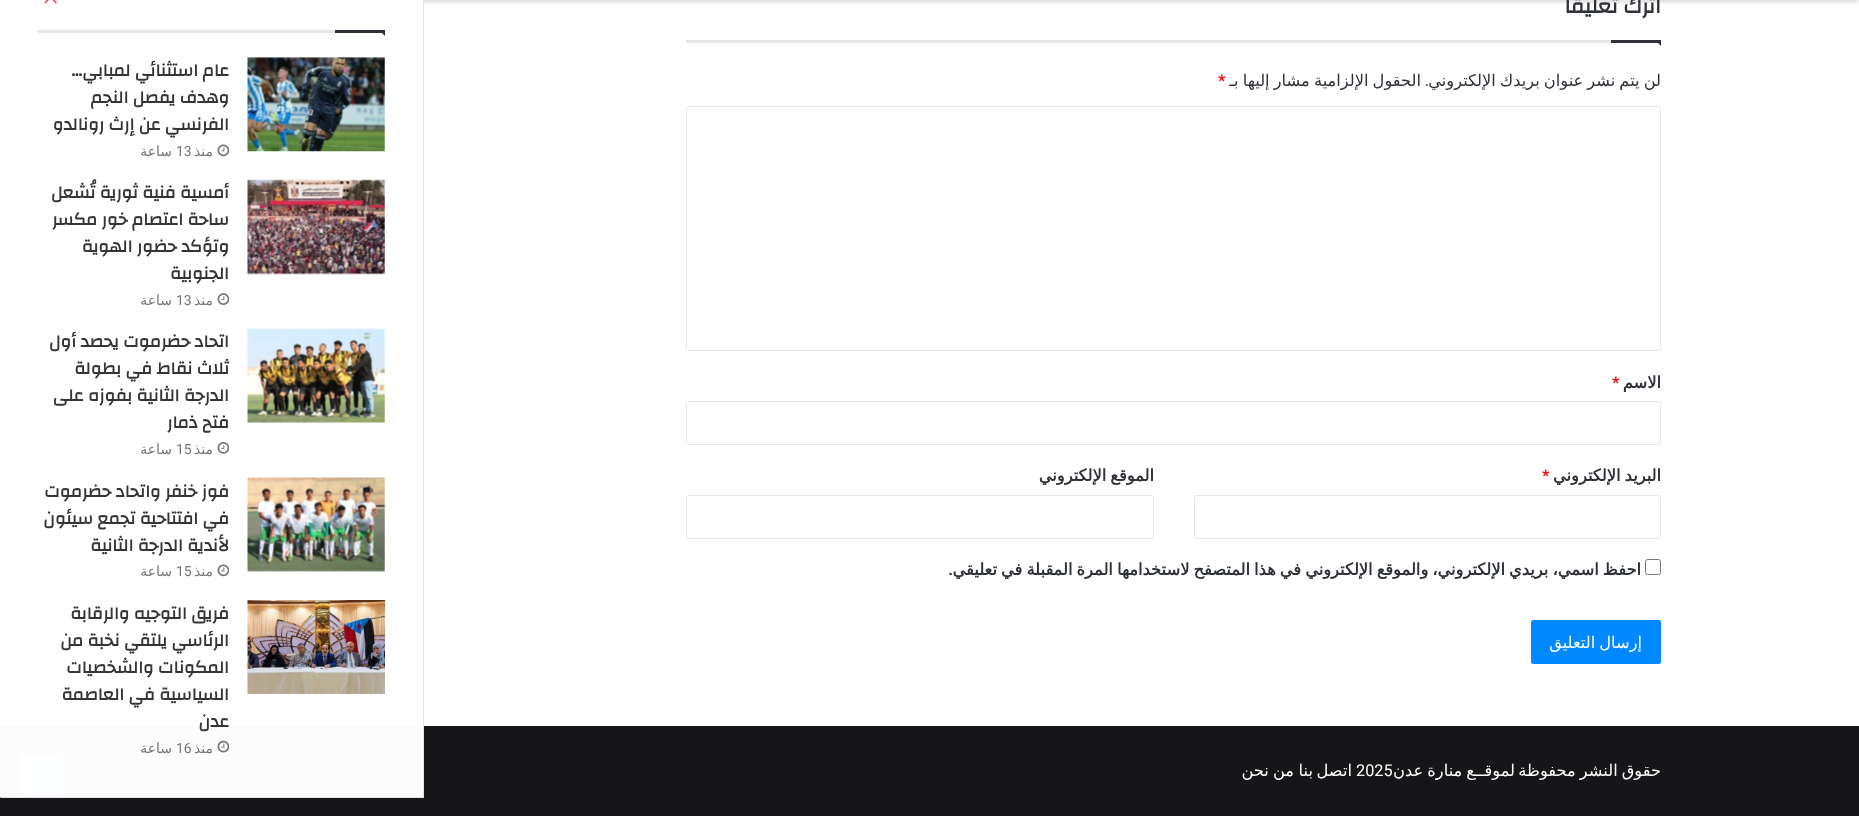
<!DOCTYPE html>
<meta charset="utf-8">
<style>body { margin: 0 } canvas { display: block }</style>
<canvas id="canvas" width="1859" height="816"></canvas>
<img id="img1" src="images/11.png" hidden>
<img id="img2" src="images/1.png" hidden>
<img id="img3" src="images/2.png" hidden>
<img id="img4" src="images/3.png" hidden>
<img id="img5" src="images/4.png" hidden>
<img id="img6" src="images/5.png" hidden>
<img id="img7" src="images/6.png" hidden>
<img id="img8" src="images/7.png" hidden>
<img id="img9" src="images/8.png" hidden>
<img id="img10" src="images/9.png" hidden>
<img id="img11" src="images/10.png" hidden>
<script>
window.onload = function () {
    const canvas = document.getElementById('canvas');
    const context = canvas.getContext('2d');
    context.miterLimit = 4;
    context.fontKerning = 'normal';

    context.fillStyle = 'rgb(255, 255, 255)';
    context.fillRect(0, 0, 1859, 816);
    context.fillStyle = 'rgba(0, 0, 0, 0.1)';
    context.filter = 'blur(1px)';
    context.beginPath();
    context.rect(3, -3, 1855, 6);
    context.fill();
    context.filter = 'none';
    context.fillStyle = 'rgb(230, 230, 230)';
    context.fillRect(686, 40, 925, 3);
    context.fillStyle = 'rgb(46, 49, 54)';
    context.beginPath();
    context.moveTo(1655, 40);
    context.lineTo(1661, 40);
    context.lineTo(1661, 46);
    context.closePath();
    context.fill();
    context.fillRect(1611, 40, 50, 3);
    context.beginPath();
    context.roundRect(686.5, 106.5, 974, 244, 2);
    context.strokeStyle = 'rgb(230, 230, 230)';
    context.stroke();
    context.beginPath();
    context.roundRect(686.5, 401.5, 974, 43, 2);
    context.stroke();
    context.beginPath();
    context.roundRect(1194.5, 495.5, 466, 43, 2);
    context.stroke();
    context.beginPath();
    context.roundRect(686.5, 495.5, 467, 43, 2);
    context.stroke();
    context.beginPath();
    context.roundRect(1645.5, 559.5, 15, 15, 2);
    context.strokeStyle = 'rgb(119, 119, 119)';
    context.stroke();
    context.fillStyle = 'rgb(3, 137, 255)';
    context.beginPath();
    context.roundRect(1531, 620, 130, 44, 2.5);
    context.fill();
    context.fillStyle = 'rgb(22, 22, 25)';
    context.fillRect(0, 726, 1859, 90);
    context.fillStyle = 'rgb(0, 136, 255)';
    context.fillRect(19, 754, 44, 44);
    context.drawImage(document.getElementById('img1'), 35, 772, 10, 6);
    context.fillStyle = 'rgba(255, 255, 255, 0.99)';
    context.beginPath();
    context.moveTo(1.5, -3);
    context.lineTo(424, -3);
    context.lineTo(424, 798);
    context.lineTo(1.5, 798);
    context.bezierCurveTo(0, 798, -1, 797, -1, 795.5);
    context.lineTo(-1, -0.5);
    context.bezierCurveTo(-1, -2, 0, -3, 1.5, -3);
    context.closePath();
    context.fill();
    context.strokeStyle = 'rgba(0, 0, 0, 0.1)';
    context.strokeRect(-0.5, -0.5, 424, 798);
    context.fillStyle = 'rgb(230, 230, 230)';
    context.fillRect(38, 30, 297, 3);
    context.drawImage(document.getElementById('img2'), 44, 0, 13, 4);
    context.fillStyle = 'rgb(46, 49, 54)';
    context.beginPath();
    context.moveTo(379, 30);
    context.lineTo(385, 30);
    context.lineTo(385, 36);
    context.closePath();
    context.fill();
    context.fillRect(335, 30, 50, 3);
    context.drawImage(document.getElementById('img3'), 247, 57, 138, 95);
    context.drawImage(document.getElementById('img4'), 217, 144, 12, 13);
    context.drawImage(document.getElementById('img5'), 247, 179, 138, 96);
    context.drawImage(document.getElementById('img6'), 217, 293, 12, 12);
    context.drawImage(document.getElementById('img7'), 247, 328, 138, 95);
    context.drawImage(document.getElementById('img8'), 217, 442, 12, 12);
    context.drawImage(document.getElementById('img9'), 247, 477, 138, 95);
    context.drawImage(document.getElementById('img4'), 217, 564, 12, 13);
    context.drawImage(document.getElementById('img10'), 247, 600, 138, 94);
    context.drawImage(document.getElementById('img11'), 217, 740, 12, 13);
    context.direction = 'rtl';
    context.font = 'bold 21.25px Changa';
    context.fillText('اترك تعليقاً', 1661, 13);
    context.wordSpacing = '-1.1px';
    context.font = '16.25px DejaVu Sans';
    context.fillText('لن يتم نشر عنوان بريدك الإلكتروني', 1661, 86);
    context.wordSpacing = '-1px';
    context.fillText('الحقول الإلزامية مشار إليها بـ', 1421, 86);
    context.wordSpacing = '0px';
    context.direction = 'ltr';
    context.font = 'bold 16.25px Roboto';
    context.fillStyle = 'rgb(255, 3, 3)';
    context.fillText('*', 1218, 86);
    context.direction = 'rtl';
    context.font = '16.25px Roboto';
    context.fillStyle = 'rgb(46, 49, 54)';
    context.fillText('.', 1429, 86);
    context.font = 'bold 16.25px DejaVu Sans';
    context.fillText('الاسم', 1661, 388);
    context.direction = 'ltr';
    context.font = 'bold 16.25px Roboto';
    context.fillStyle = 'rgb(255, 3, 3)';
    context.fillText('*', 1612, 388);
    context.wordSpacing = '-1.1px';
    context.direction = 'rtl';
    context.font = 'bold 16.25px DejaVu Sans';
    context.fillStyle = 'rgb(46, 49, 54)';
    context.fillText('البريد الإلكتروني', 1661, 481);
    context.wordSpacing = '0px';
    context.direction = 'ltr';
    context.font = 'bold 16.25px Roboto';
    context.fillStyle = 'rgb(255, 3, 3)';
    context.fillText('*', 1542, 481);
    context.wordSpacing = '-1.1px';
    context.direction = 'rtl';
    context.font = 'bold 16.25px DejaVu Sans';
    context.fillStyle = 'rgb(46, 49, 54)';
    context.fillText('الموقع الإلكتروني', 1154, 481);
    context.fillText('احفظ اسمي، بريدي الإلكتروني، والموقع الإلكتروني في هذا المتصفح لاستخدامها المرة المقبلة في تعليقي', 1641, 575);
    context.wordSpacing = '0px';
    context.font = 'bold 16.25px Roboto';
    context.fillText('.', 953, 575);
    context.wordSpacing = '-1.1px';
    context.font = '16.25px DejaVu Sans';
    context.fillStyle = 'rgb(255, 255, 255)';
    context.fillText('إرسال التعليق', 1642, 648);
    context.wordSpacing = '0px';
    context.font = 'bold 17.5px Changa';
    context.fillStyle = 'rgb(53, 53, 53)';
    context.fillText('عام استثنائي لمبابي…', 229, 76);
    context.fillText('وهدف يفصل النجم', 229, 103);
    context.fillText('الفرنسي عن إرث رونالدو', 229, 130);
    context.font = '14px DejaVu Sans';
    context.fillStyle = 'rgb(119, 119, 119)';
    context.fillText('منذ', 213, 156);
    context.direction = 'ltr';
    context.font = '14px Roboto';
    context.fillText('13', 176, 156);
    context.direction = 'rtl';
    context.font = '14px DejaVu Sans';
    context.fillText('ساعة', 172, 156);
    context.font = 'bold 17.5px Changa';
    context.fillStyle = 'rgb(53, 53, 53)';
    context.fillText('أمسية فنية ثورية تُشعل', 229, 198);
    context.fillText('ساحة اعتصام خور مكسر', 229, 225);
    context.fillText('وتؤكد حضور الهوية', 229, 252);
    context.fillText('الجنوبية', 229, 279);
    context.font = '14px DejaVu Sans';
    context.fillStyle = 'rgb(119, 119, 119)';
    context.fillText('منذ', 213, 305);
    context.direction = 'ltr';
    context.font = '14px Roboto';
    context.fillText('13', 176, 305);
    context.direction = 'rtl';
    context.font = '14px DejaVu Sans';
    context.fillText('ساعة', 172, 305);
    context.font = 'bold 17.5px Changa';
    context.fillStyle = 'rgb(53, 53, 53)';
    context.fillText('اتحاد حضرموت يحصد أول', 229, 347);
    context.fillText('ثلاث نقاط في بطولة', 229, 374);
    context.fillText('الدرجة الثانية بفوزه على', 229, 401);
    context.fillText('فتح ذمار', 229, 428);
    context.font = '14px DejaVu Sans';
    context.fillStyle = 'rgb(119, 119, 119)';
    context.fillText('منذ', 213, 454);
    context.direction = 'ltr';
    context.font = '14px Roboto';
    context.fillText('15', 176, 454);
    context.direction = 'rtl';
    context.font = '14px DejaVu Sans';
    context.fillText('ساعة', 172, 454);
    context.font = 'bold 17.5px Changa';
    context.fillStyle = 'rgb(53, 53, 53)';
    context.fillText('فوز خنفر واتحاد حضرموت', 229, 497);
    context.fillText('في افتتاحية تجمع سيئون', 229, 524);
    context.fillText('لأندية الدرجة الثانية', 229, 551);
    context.font = '14px DejaVu Sans';
    context.fillStyle = 'rgb(119, 119, 119)';
    context.fillText('منذ', 213, 576);
    context.direction = 'ltr';
    context.font = '14px Roboto';
    context.fillText('15', 176, 576);
    context.direction = 'rtl';
    context.font = '14px DejaVu Sans';
    context.fillText('ساعة', 172, 576);
    context.font = 'bold 17.5px Changa';
    context.fillStyle = 'rgb(53, 53, 53)';
    context.fillText('فريق التوجيه والرقابة', 229, 619);
    context.fillText('الرئاسي يلتقي نخبة من', 229, 646);
    context.fillText('المكونات والشخصيات', 229, 673);
    context.fillText('السياسية في العاصمة', 229, 700);
    context.fillText('عدن', 229, 727);
    context.font = '14px DejaVu Sans';
    context.fillStyle = 'rgb(119, 119, 119)';
    context.fillText('منذ', 213, 753);
    context.direction = 'ltr';
    context.font = '14px Roboto';
    context.fillText('16', 176, 753);
    context.direction = 'rtl';
    context.font = '14px DejaVu Sans';
    context.fillText('ساعة', 172, 753);
    context.wordSpacing = '-1.1px';
    context.font = '16.25px DejaVu Sans';
    context.fillStyle = 'rgb(255, 255, 255)';
    context.fillText('حقوق النشر محفوظة', 1661, 776);
    context.fillText('لموقــع منارة عدن', 1515, 776);
    context.wordSpacing = '0px';
    context.direction = 'ltr';
    context.font = '16.25px Roboto';
    context.fillText('2025', 1356, 776);
    context.direction = 'rtl';
    context.font = '16.25px DejaVu Sans';
    context.fillText('اتصل', 1352, 776);
    context.fillText('بنا', 1313, 776);
    context.wordSpacing = '-1.1px';
    context.fillText('من نحن', 1294, 776);
};
</script>
